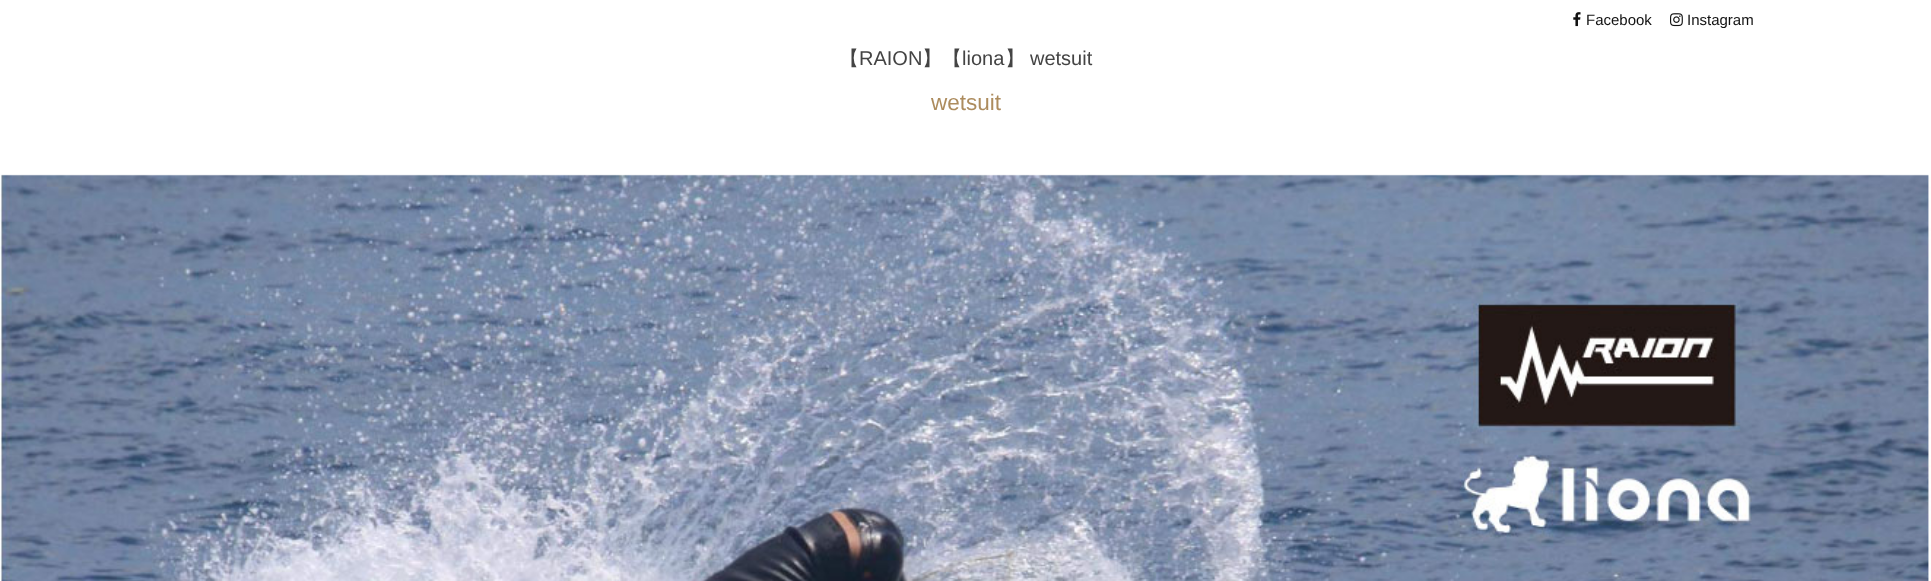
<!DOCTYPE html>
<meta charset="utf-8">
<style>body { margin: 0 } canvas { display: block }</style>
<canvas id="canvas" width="1931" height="581"></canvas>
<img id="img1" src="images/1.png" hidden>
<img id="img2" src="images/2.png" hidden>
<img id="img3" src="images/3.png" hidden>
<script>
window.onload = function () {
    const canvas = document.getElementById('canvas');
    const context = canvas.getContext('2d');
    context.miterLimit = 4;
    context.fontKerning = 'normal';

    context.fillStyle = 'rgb(255, 255, 255)';
    context.fillRect(0, 0, 1931, 581);
    context.drawImage(document.getElementById('img1'), 1573, 12, 8, 15);
    context.drawImage(document.getElementById('img2'), 1670, 13, 13, 14);
    context.drawImage(document.getElementById('img3'), 0, 174, 1931, 407);
    context.font = '15px Liberation Sans';
    context.fillStyle = 'rgb(17, 17, 17)';
    context.fillText('Facebook', 1586, 25);
    context.fillText('Instagram', 1687, 25);
    context.font = '500 20px WenQuanYi Zen Hei';
    context.fillStyle = 'rgb(68, 68, 68)';
    context.fillText('【', 839, 65);
    context.font = '20px Liberation Sans';
    context.fillText('RAION', 859, 65);
    context.font = '500 20px WenQuanYi Zen Hei';
    context.fillText('】【', 922, 65);
    context.font = '20px Liberation Sans';
    context.fillText('liona', 962, 65);
    context.font = '500 20px WenQuanYi Zen Hei';
    context.fillText('】', 1005, 65);
    context.font = '20px Liberation Sans';
    context.fillText('wetsuit', 1030, 65);
    context.font = '22.5px Liberation Sans';
    context.fillStyle = 'rgb(173, 140, 94)';
    context.fillText('wetsuit', 931, 110);
};
</script>
